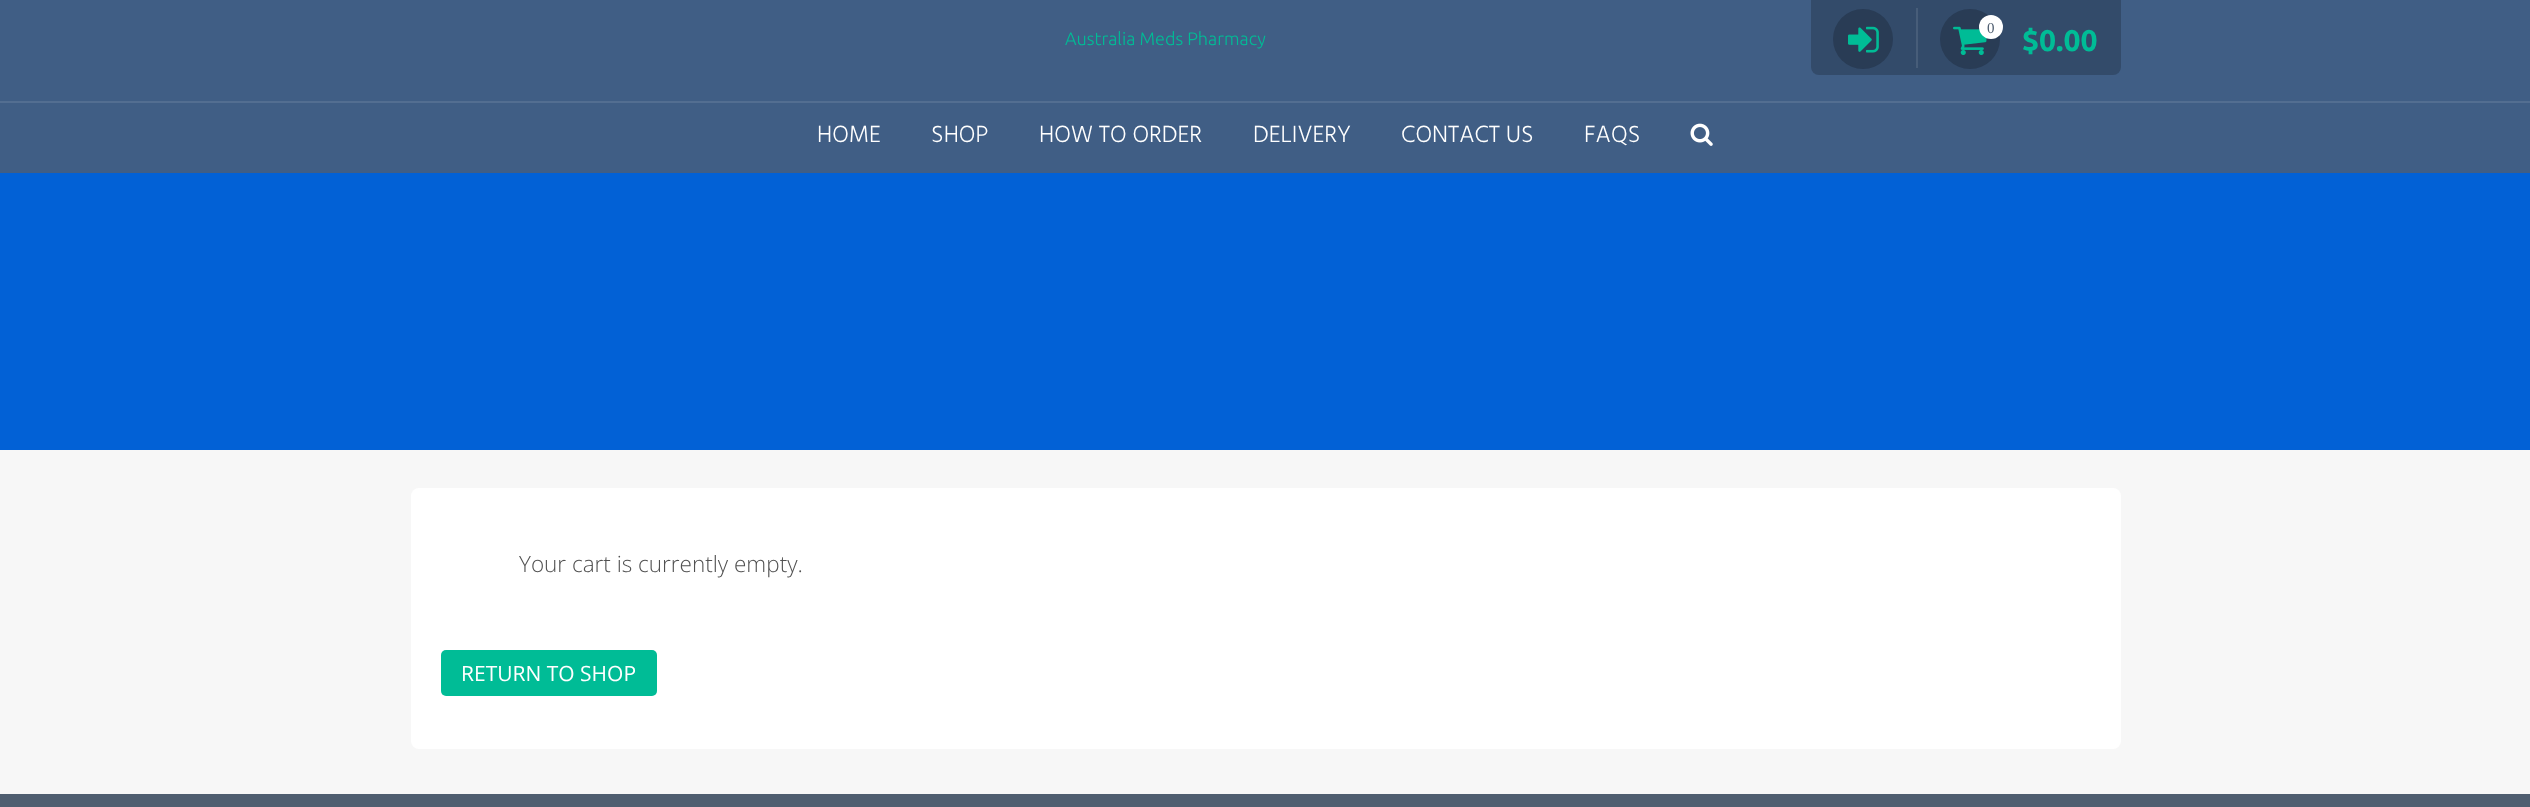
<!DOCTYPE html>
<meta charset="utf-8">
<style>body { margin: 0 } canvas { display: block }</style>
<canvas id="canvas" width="2530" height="807"></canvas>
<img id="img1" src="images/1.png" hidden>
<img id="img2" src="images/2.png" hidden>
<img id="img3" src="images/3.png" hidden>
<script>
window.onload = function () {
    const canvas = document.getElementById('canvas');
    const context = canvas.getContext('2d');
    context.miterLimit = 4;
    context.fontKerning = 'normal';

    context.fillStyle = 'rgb(247, 247, 247)';
    context.fillRect(0, 0, 2530, 807);
    context.fillStyle = 'rgb(64, 94, 133)';
    context.fillRect(0, 0, 2530, 173);
    context.fillStyle = 'rgb(51, 75, 106)';
    context.beginPath();
    context.roundRect(1811, 0, 310, 75, [0, 0, 8, 8]);
    context.fill();
    context.fillStyle = 'rgb(41, 60, 85)';
    context.beginPath();
    context.arc(1863, 39, 30, 0, 2 * Math.PI);
    context.fill();
    context.drawImage(document.getElementById('img1'), 1848, 26, 31, 27);
    context.fillStyle = 'rgb(71, 93, 121)';
    context.fillRect(1916, 8, 2, 60);
    context.fillStyle = 'rgb(41, 60, 85)';
    context.beginPath();
    context.arc(1970, 39, 30, 0, 2 * Math.PI);
    context.fill();
    context.drawImage(document.getElementById('img2'), 1953, 26, 34, 29);
    context.fillStyle = 'rgb(255, 255, 255)';
    context.beginPath();
    context.arc(1991, 27, 12, 0, 2 * Math.PI);
    context.fill();
    context.fillStyle = 'rgb(83, 110, 145)';
    context.fillRect(0, 101, 2530, 2);
    context.drawImage(document.getElementById('img3'), 1690, 123, 23, 23);
    context.fillStyle = 'rgb(2, 97, 214)';
    context.fillRect(0, 173, 2530, 277);
    context.fillStyle = 'rgb(255, 255, 255)';
    context.beginPath();
    context.roundRect(411, 488, 1710, 261, 8);
    context.fill();
    context.fillStyle = 'rgb(0, 188, 150)';
    context.beginPath();
    context.roundRect(441, 650, 216, 46, 5);
    context.fill();
    context.fillStyle = 'rgb(79, 94, 112)';
    context.fillRect(0, 794, 2530, 13);
    context.font = '300 18px Ubuntu';
    context.fillStyle = 'rgb(0, 188, 150)';
    context.fillText('Australia Meds Pharmacy', 1065, 45);
    context.font = '15px Liberation Serif';
    context.fillStyle = 'rgb(79, 94, 112)';
    context.fillText('0', 1987, 33);
    context.font = 'bold 30px Ubuntu';
    context.fillStyle = 'rgb(0, 188, 150)';
    context.fillText('$0.00', 2022, 51);
    context.font = '300 24px Hind';
    context.fillStyle = 'rgb(255, 255, 255)';
    context.fillText('HOME', 817, 142);
    context.fillText('SHOP', 931, 142);
    context.fillText('HOW TO ORDER', 1039, 142);
    context.fillText('DELIVERY', 1253, 142);
    context.fillText('CONTACT US', 1401, 142);
    context.fillText('FAQS', 1584, 142);
    context.font = '300 22.5px Open Sans';
    context.fillStyle = 'rgb(81, 81, 81)';
    context.fillText('Your cart is currently empty.', 519, 572);
    context.font = '21px Open Sans';
    context.fillStyle = 'rgb(255, 255, 255)';
    context.fillText('RETURN TO SHOP', 461, 681);
};
</script>
